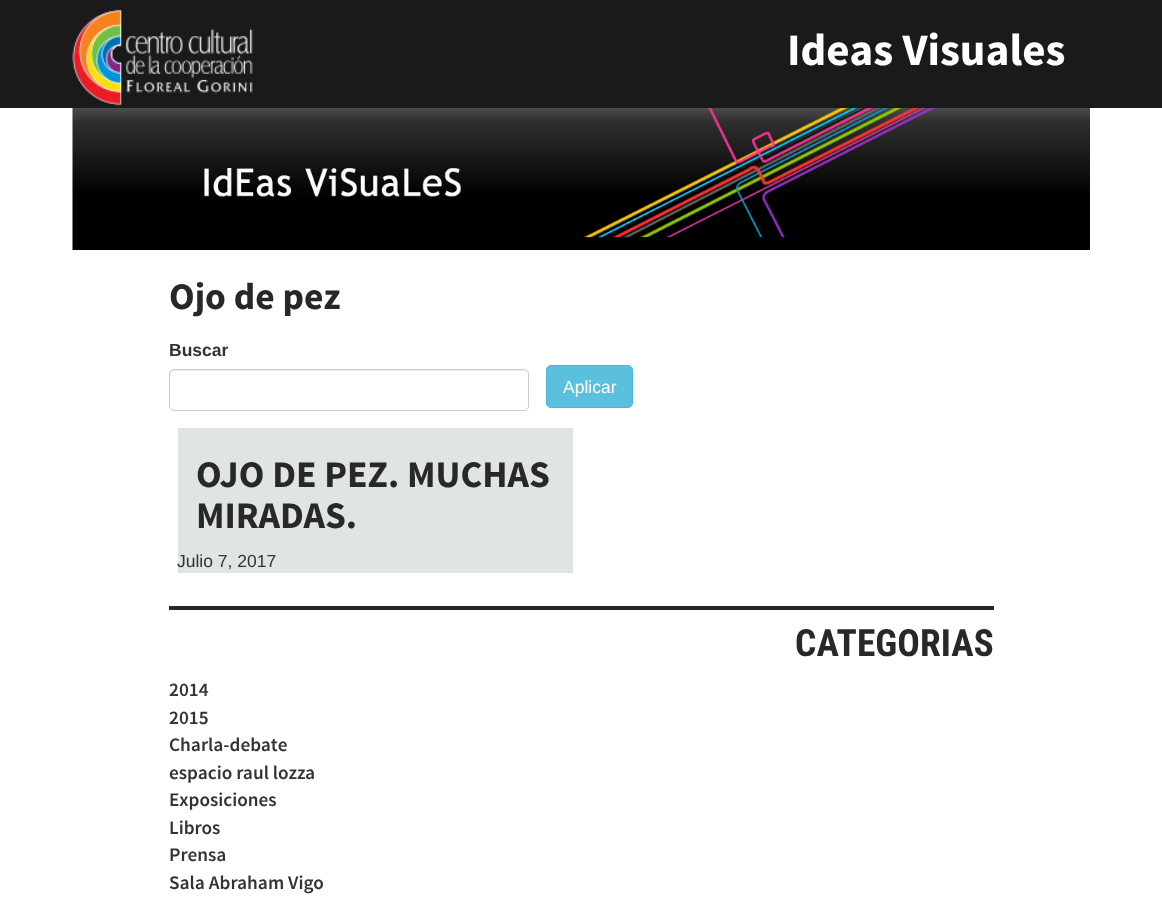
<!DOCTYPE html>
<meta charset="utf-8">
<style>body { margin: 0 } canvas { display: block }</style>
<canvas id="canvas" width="1162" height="897"></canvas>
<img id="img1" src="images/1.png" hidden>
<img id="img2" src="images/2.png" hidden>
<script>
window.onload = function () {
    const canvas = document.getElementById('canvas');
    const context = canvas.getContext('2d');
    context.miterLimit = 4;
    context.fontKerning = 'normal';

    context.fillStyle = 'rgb(255, 255, 255)';
    context.fillRect(0, 0, 1162, 897);
    context.fillStyle = 'rgb(26, 26, 26)';
    context.fillRect(0, 0, 1162, 108);
    context.drawImage(document.getElementById('img1'), 72, 9, 181, 97);
    context.drawImage(document.getElementById('img2'), 72, 108, 1018, 142);
    context.fillStyle = 'rgb(236, 236, 236)';
    context.beginPath();
    context.moveTo(174, 371);
    context.lineTo(524, 371);
    context.bezierCurveTo(526, 371, 528, 373, 528, 375);
    context.lineTo(527, 372);
    context.lineTo(525, 370);
    context.lineTo(174, 370);
    context.bezierCurveTo(171, 370, 170, 372, 170, 375);
    context.bezierCurveTo(170, 373, 172, 371, 174, 371);
    context.closePath();
    context.fill();
    context.beginPath();
    context.roundRect(169.5, 369.5, 359, 41, 4.5);
    context.strokeStyle = 'rgb(204, 204, 204)';
    context.stroke();
    context.fillStyle = 'rgb(91, 192, 222)';
    context.beginPath();
    context.roundRect(546.5, 365.5, 86, 42, 4.5);
    context.fill();
    context.strokeStyle = 'rgb(70, 184, 218)';
    context.stroke();
    context.fillStyle = 'rgb(225, 228, 228)';
    context.fillRect(178, 428, 395, 145);
    context.fillStyle = 'rgb(40, 40, 40)';
    context.fillRect(169, 606, 825, 4);
    context.font = 'bold 45px Source Sans Pro';
    context.fillStyle = 'rgb(255, 255, 255)';
    context.fillText('Ideas Visuales', 787, 65);
    context.font = 'bold 37.5px Source Sans Pro';
    context.fillStyle = 'rgb(40, 40, 40)';
    context.fillText('Ojo de pez', 169, 309);
    context.font = 'bold 17.5px Liberation Sans';
    context.fillStyle = 'rgb(51, 51, 51)';
    context.fillText('Buscar', 169, 356);
    context.font = '17.5px Liberation Sans';
    context.fillStyle = 'rgb(255, 255, 255)';
    context.fillText('Aplicar', 563, 393);
    context.font = 'bold 37.5px Source Sans Pro';
    context.fillStyle = 'rgb(40, 40, 40)';
    context.fillText('OJO DE PEZ. MUCHAS', 196, 487);
    context.fillText('MIRADAS.', 196, 528);
    context.font = '17.5px Liberation Sans';
    context.fillStyle = 'rgb(51, 51, 51)';
    context.fillText('Julio 7, 2017', 177, 567);
    context.font = 'bold 37.5px Roboto Condensed';
    context.fillStyle = 'rgb(40, 40, 40)';
    context.fillText('CATEGORIAS', 795, 656);
    context.font = '600 19.25px Source Sans Pro';
    context.fillStyle = 'rgb(51, 51, 51)';
    context.fillText('2014', 169, 696);
    context.fillText('2015', 169, 724);
    context.fillText('Charla-debate', 169, 751);
    context.fillText('espacio raul lozza', 169, 779);
    context.fillText('Exposiciones', 169, 806);
    context.fillText('Libros', 169, 834);
    context.fillText('Prensa', 169, 861);
    context.fillText('Sala Abraham Vigo', 169, 889);
};
</script>
